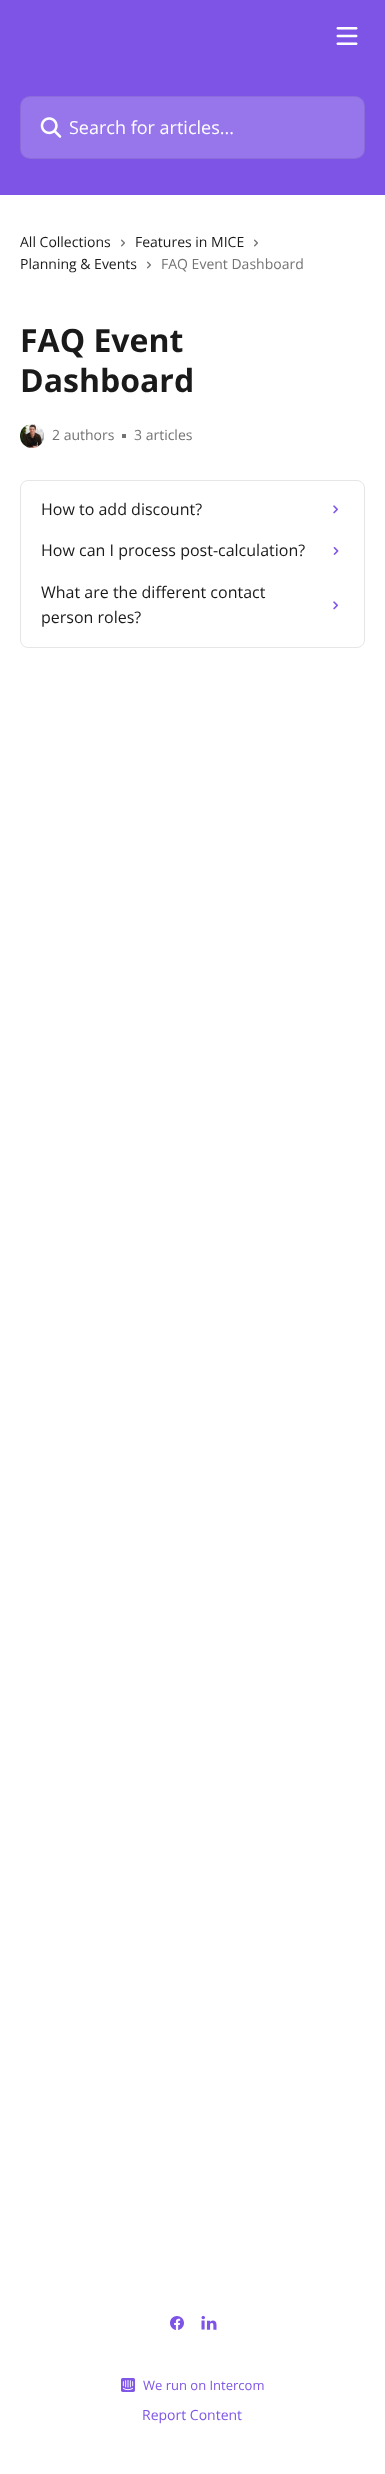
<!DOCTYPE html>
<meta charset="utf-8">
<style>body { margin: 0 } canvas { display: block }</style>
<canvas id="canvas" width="385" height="2474"></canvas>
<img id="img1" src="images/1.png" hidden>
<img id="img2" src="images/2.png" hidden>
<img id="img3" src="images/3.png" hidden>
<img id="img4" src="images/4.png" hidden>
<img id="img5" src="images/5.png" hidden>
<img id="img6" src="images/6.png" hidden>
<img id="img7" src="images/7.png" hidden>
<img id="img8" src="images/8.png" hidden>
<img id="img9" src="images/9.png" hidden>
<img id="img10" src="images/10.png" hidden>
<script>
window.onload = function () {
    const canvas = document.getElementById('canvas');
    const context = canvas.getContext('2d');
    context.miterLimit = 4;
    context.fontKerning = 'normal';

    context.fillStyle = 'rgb(255, 255, 255)';
    context.fillRect(0, 0, 385, 2474);
    context.fillStyle = 'rgb(126, 84, 230)';
    context.fillRect(0, 0, 385, 195);
    context.drawImage(document.getElementById('img1'), 336, 27, 22, 18);
    context.fillStyle = 'rgba(255, 255, 255, 0.2)';
    context.beginPath();
    context.roundRect(20, 96, 345, 63, 10);
    context.fill();
    context.beginPath();
    context.roundRect(20.5, 96.5, 344, 62, 9.5);
    context.strokeStyle = 'rgba(0, 0, 0, 0.08)';
    context.stroke();
    context.drawImage(document.getElementById('img2'), 40, 117, 22, 21);
    context.drawImage(document.getElementById('img3'), 121, 239, 4, 8);
    context.drawImage(document.getElementById('img3'), 254, 239, 4, 8);
    context.drawImage(document.getElementById('img3'), 147, 261, 4, 8);
    context.drawImage(document.getElementById('img4'), 20, 424, 24, 24);
    context.fillStyle = 'rgb(115, 115, 115)';
    context.fillRect(122, 434, 4, 4);
    context.beginPath();
    context.roundRect(20.5, 480.5, 344, 167, 7.5);
    context.strokeStyle = 'rgb(230, 230, 230)';
    context.stroke();
    context.drawImage(document.getElementById('img5'), 333, 505, 5, 9);
    context.drawImage(document.getElementById('img6'), 333, 547, 6, 8);
    context.drawImage(document.getElementById('img7'), 333, 601, 5, 9);
    context.drawImage(document.getElementById('img8'), 170, 2316, 14, 14);
    context.drawImage(document.getElementById('img9'), 201, 2316, 16, 14);
    context.drawImage(document.getElementById('img10'), 121, 2378, 14, 14);
    context.font = '18px Open Sans';
    context.fillStyle = 'rgb(255, 255, 255)';
    context.fillText('Search for articles...', 69, 134);
    context.font = '14px Open Sans';
    context.fillStyle = 'rgb(26, 26, 26)';
    context.fillText('All Collections', 20, 247);
    context.fillText('Features in MICE', 135, 247);
    context.fillText('Planning & Events', 20, 269);
    context.fillStyle = 'rgb(115, 115, 115)';
    context.fillText('FAQ Event Dashboard', 161, 269);
    context.font = 'bold 32px Open Sans';
    context.fillStyle = 'rgb(26, 26, 26)';
    context.fillText('FAQ Event', 20, 352);
    context.fillText('Dashboard', 20, 392);
    context.font = '14px Open Sans';
    context.fillStyle = 'rgb(115, 115, 115)';
    context.fillText('2 authors', 52, 440);
    context.fillText('3 articles', 134, 440);
    context.font = '16px Open Sans';
    context.fillStyle = 'rgb(26, 26, 26)';
    context.fillText('How to add discount?', 41, 515);
    context.fillText('How can I process post-calculation?', 41, 556);
    context.fillText('What are the different contact', 41, 598);
    context.fillText('person roles?', 41, 623);
    context.font = '13px Open Sans';
    context.fillStyle = 'rgb(127, 86, 230)';
    context.fillText('We run on Intercom', 143, 2390);
    context.font = '14px Open Sans';
    context.fillText('Report Content', 142, 2420);
};
</script>
